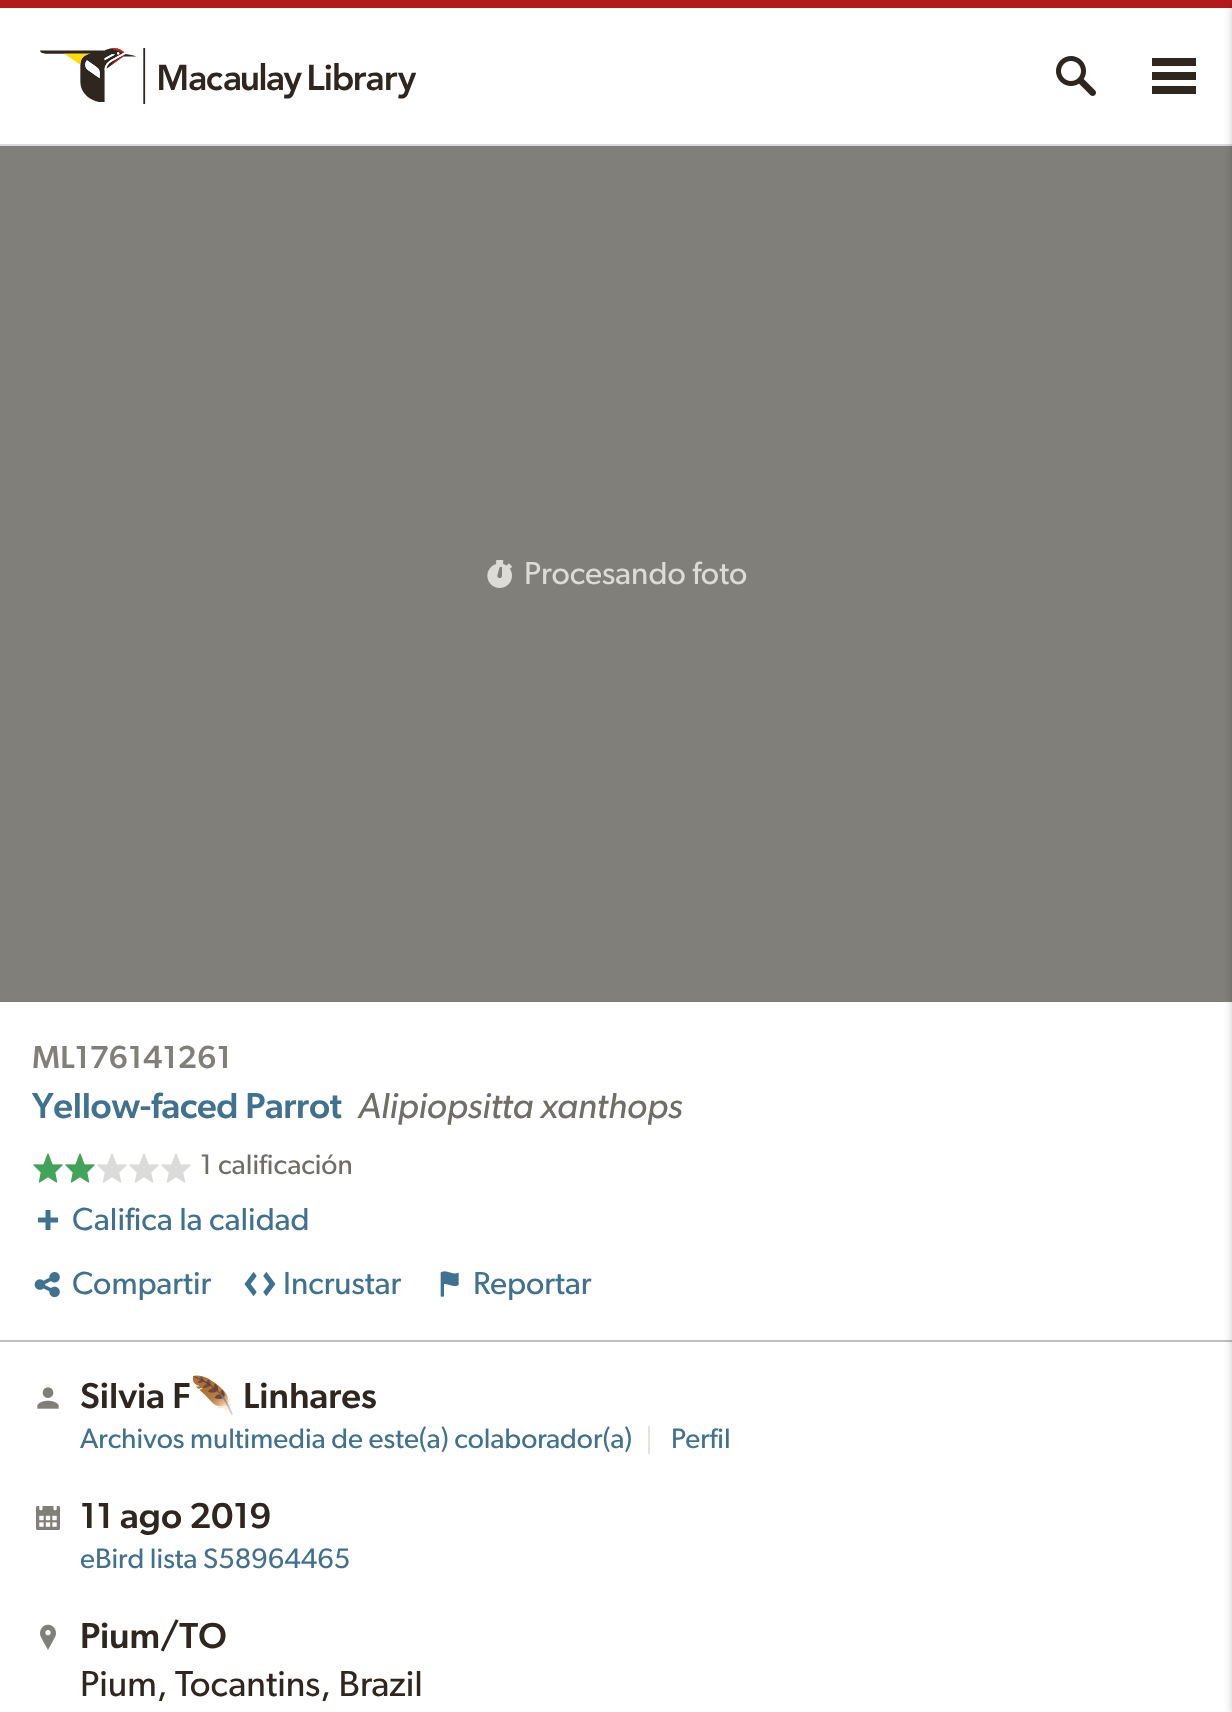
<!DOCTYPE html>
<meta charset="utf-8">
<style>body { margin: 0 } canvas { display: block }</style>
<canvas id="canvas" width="1232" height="1712"></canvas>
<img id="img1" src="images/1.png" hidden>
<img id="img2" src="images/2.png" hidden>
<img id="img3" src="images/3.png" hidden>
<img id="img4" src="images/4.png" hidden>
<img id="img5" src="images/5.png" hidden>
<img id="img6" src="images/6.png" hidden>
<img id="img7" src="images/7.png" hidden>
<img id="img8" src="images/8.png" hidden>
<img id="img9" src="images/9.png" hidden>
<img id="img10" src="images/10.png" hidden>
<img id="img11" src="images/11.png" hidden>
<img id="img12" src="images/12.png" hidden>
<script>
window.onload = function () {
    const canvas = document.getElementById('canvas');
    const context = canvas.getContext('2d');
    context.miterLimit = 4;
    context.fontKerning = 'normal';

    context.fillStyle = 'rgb(255, 255, 255)';
    context.fillRect(0, 0, 1232, 1712);
    context.fillStyle = 'rgb(179, 27, 27)';
    context.fillRect(0, 0, 1232, 8);
    context.fillStyle = 'rgb(219, 219, 217)';
    context.fillRect(0, 144, 1232, 2);
    context.drawImage(document.getElementById('img1'), 40, 48, 376, 56);
    context.drawImage(document.getElementById('img2'), 1056, 56, 40, 40);
    context.fillStyle = 'rgb(46, 38, 31)';
    context.beginPath();
    context.moveTo(1152, 58);
    context.lineTo(1196, 58);
    context.lineTo(1196, 66);
    context.lineTo(1152, 66);
    context.closePath();
    context.moveTo(1152, 72);
    context.lineTo(1196, 72);
    context.lineTo(1196, 80);
    context.lineTo(1152, 80);
    context.closePath();
    context.moveTo(1152, 86);
    context.lineTo(1196, 86);
    context.lineTo(1196, 94);
    context.lineTo(1152, 94);
    context.closePath();
    context.fill('evenodd');
    context.fillStyle = 'rgb(129, 127, 121)';
    context.fillRect(0, 146, 1232, 856);
    context.fillStyle = 'rgb(191, 191, 191)';
    context.fillRect(0, 1340, 1232, 2);
    context.fillStyle = 'rgba(0, 0, 0, 0.2)';
    context.filter = 'blur(4px)';
    context.beginPath();
    context.rect(1232, 4, 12, 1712);
    context.fill();
    context.filter = 'none';
    context.drawImage(document.getElementById('img3'), 487, 560, 25, 28);
    context.drawImage(document.getElementById('img4'), 33, 1153, 30, 30);
    context.drawImage(document.getElementById('img4'), 65, 1153, 30, 30);
    context.drawImage(document.getElementById('img5'), 97, 1153, 30, 30);
    context.drawImage(document.getElementById('img5'), 129, 1153, 30, 30);
    context.drawImage(document.getElementById('img5'), 161, 1153, 30, 30);
    context.drawImage(document.getElementById('img6'), 38, 1210, 20, 20);
    context.drawImage(document.getElementById('img7'), 34, 1272, 26, 26);
    context.drawImage(document.getElementById('img8'), 244, 1272, 32, 24);
    context.drawImage(document.getElementById('img9'), 440, 1271, 19, 26);
    context.drawImage(document.getElementById('img10'), 37, 1387, 22, 22);
    context.fillStyle = 'rgb(229, 227, 220)';
    context.fillRect(648, 1426, 2, 28);
    context.drawImage(document.getElementById('img11'), 36, 1506, 24, 24);
    context.drawImage(document.getElementById('img12'), 40, 1624, 16, 26);
    context.font = '32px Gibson';
    context.fillStyle = 'rgb(220, 220, 213)';
    context.fillText('Procesando foto', 524, 584);
    context.letterSpacing = '0.25px';
    context.font = '500 32px Gibson';
    context.fillStyle = 'rgb(129, 127, 121)';
    context.fillText('ML176141261', 32, 1068);
    context.letterSpacing = '-0.3px';
    context.font = '500 36.25px Gibson';
    context.fillStyle = 'rgb(64, 113, 143)';
    context.fillText('Yellow-faced Parrot', 32, 1118);
    context.letterSpacing = '0px';
    context.font = 'italic 36.25px Gibson';
    context.fillStyle = 'rgb(111, 110, 103)';
    context.fillText('Alipiopsitta xanthops', 358, 1118);
    context.font = '28.2px Gibson';
    context.fillText('1 calificación', 200, 1174);
    context.font = '32px Gibson';
    context.fillStyle = 'rgb(64, 113, 143)';
    context.fillText('Califica la calidad', 72, 1230);
    context.fillText('Compartir', 72, 1294);
    context.fillText('Incrustar', 283, 1294);
    context.fillText('Reportar', 473, 1294);
    context.font = '500 36.25px Gibson';
    context.fillStyle = 'rgb(46, 38, 31)';
    context.fillText('Silvia F', 80, 1408);
    context.font = 'bold 36.25px Noto Color Emoji';
    context.fillText('🪶', 190, 1408);
    context.font = '500 36.25px Gibson';
    context.fillText('Linhares', 243, 1408);
    context.font = '28.2px Gibson';
    context.fillStyle = 'rgb(64, 113, 143)';
    context.fillText('Archivos multimedia de este(a) colaborador(a)', 80, 1448);
    context.fillText('Perfil', 671, 1448);
    context.font = '500 36.25px Gibson';
    context.fillStyle = 'rgb(46, 38, 31)';
    context.fillText('11 ago 2019', 80, 1528);
    context.font = '28.2px Gibson';
    context.fillStyle = 'rgb(64, 113, 143)';
    context.fillText('eBird lista S58964465', 80, 1568);
    context.font = '500 36.25px Gibson';
    context.fillStyle = 'rgb(46, 38, 31)';
    context.fillText('Pium/TO', 80, 1648);
    context.font = '36.25px Gibson';
    context.fillText('Pium, Tocantins, Brazil', 80, 1696);
};
</script>
